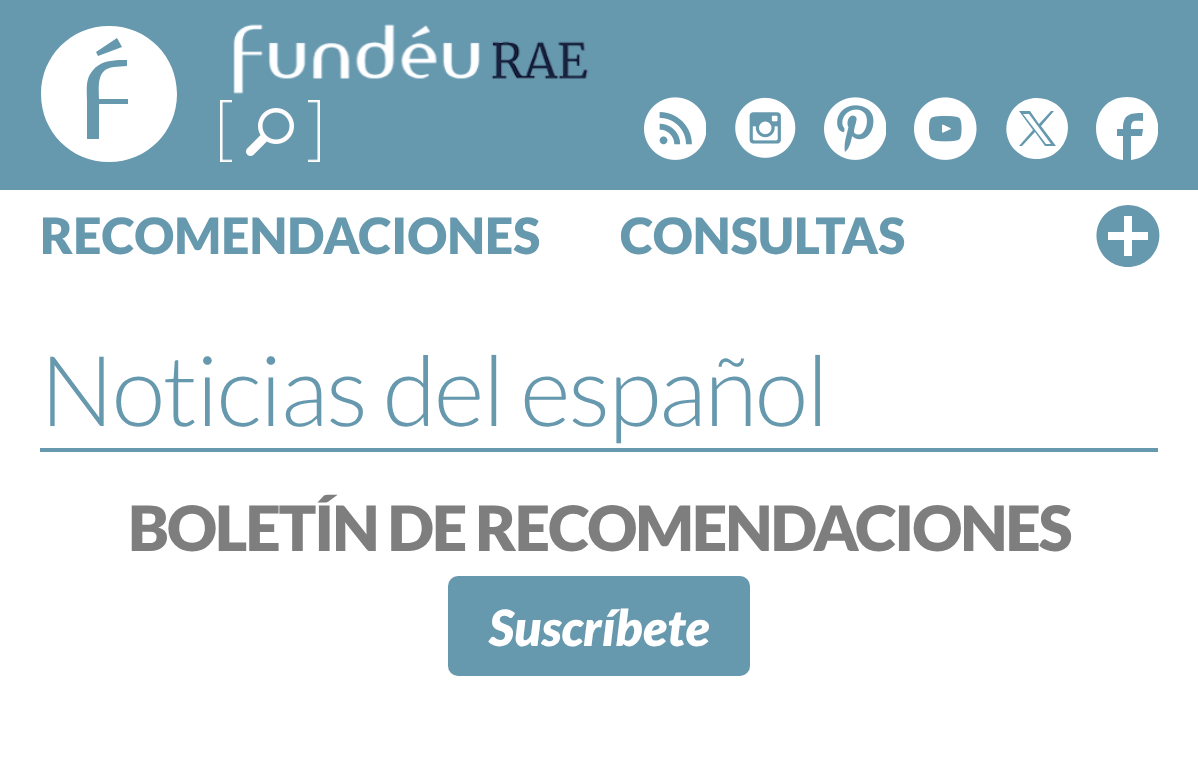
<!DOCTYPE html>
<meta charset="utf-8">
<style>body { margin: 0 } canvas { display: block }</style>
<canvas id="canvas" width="1198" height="757"></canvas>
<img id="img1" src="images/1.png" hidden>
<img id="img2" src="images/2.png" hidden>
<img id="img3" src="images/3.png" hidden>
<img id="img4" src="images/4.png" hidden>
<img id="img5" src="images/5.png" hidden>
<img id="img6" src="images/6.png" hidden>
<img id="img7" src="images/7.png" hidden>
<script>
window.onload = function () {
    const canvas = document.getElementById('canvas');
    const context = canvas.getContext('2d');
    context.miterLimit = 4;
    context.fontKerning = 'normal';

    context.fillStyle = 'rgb(255, 255, 255)';
    context.fillRect(0, 0, 1198, 757);
    context.fillStyle = 'rgb(102, 152, 174)';
    context.fillRect(0, 0, 1198, 190);
    context.fillStyle = 'rgb(255, 255, 255)';
    context.beginPath();
    context.moveTo(109, 26);
    context.bezierCurveTo(71, 26, 41, 56, 41, 94);
    context.bezierCurveTo(41, 132, 71, 162, 109, 162);
    context.bezierCurveTo(147, 162, 177, 132, 177, 94);
    context.bezierCurveTo(177, 56, 147, 26, 109, 26);
    context.closePath();
    context.moveTo(117, 38);
    context.lineTo(122, 47);
    context.lineTo(98, 56);
    context.lineTo(96, 52);
    context.closePath();
    context.moveTo(127, 104);
    context.lineTo(99, 104);
    context.lineTo(99, 139);
    context.lineTo(87, 139);
    context.lineTo(87, 101);
    context.bezierCurveTo(87, 94, 86, 86, 88, 79);
    context.bezierCurveTo(90, 73, 94, 68, 99, 65);
    context.bezierCurveTo(107, 60, 117, 60, 127, 60);
    context.lineTo(127, 66);
    context.lineTo(114, 67);
    context.bezierCurveTo(96, 69, 99, 86, 99, 99);
    context.lineTo(128, 99);
    context.lineTo(128, 104);
    context.closePath();
    context.fill();
    context.drawImage(document.getElementById('img1'), 233, 24, 356, 70);
    context.drawImage(document.getElementById('img2'), 220, 100, 100, 62);
    context.drawImage(document.getElementById('img3'), 246, 108, 48, 48);
    context.drawImage(document.getElementById('img4'), 644, 97, 62, 63);
    context.drawImage(document.getElementById('img5'), 735, 97, 61, 61);
    context.drawImage(document.getElementById('img6'), 824, 97, 62, 63);
    context.drawImage(document.getElementById('img7'), 914, 97, 63, 63);
    context.beginPath();
    context.moveTo(1023, 114);
    context.lineTo(1046, 144);
    context.lineTo(1051, 144);
    context.lineTo(1029, 114);
    context.closePath();
    context.moveTo(1037, 98);
    context.bezierCurveTo(1007, 98, 995, 137, 1020, 154);
    context.bezierCurveTo(1025, 158, 1031, 159, 1037, 159);
    context.bezierCurveTo(1067, 159, 1079, 121, 1056, 104);
    context.bezierCurveTo(1050, 100, 1044, 98, 1037, 98);
    context.closePath();
    context.moveTo(1045, 146);
    context.lineTo(1035, 132);
    context.lineTo(1022, 146);
    context.lineTo(1019, 146);
    context.lineTo(1033, 130);
    context.lineTo(1019, 111);
    context.lineTo(1030, 111);
    context.lineTo(1039, 124);
    context.lineTo(1051, 111);
    context.lineTo(1054, 111);
    context.lineTo(1041, 126);
    context.lineTo(1056, 146);
    context.closePath();
    context.fill();
    context.save();
    context.beginPath();
    context.rect(1096, 94, 62, 76);
    context.clip();
    context.beginPath();
    context.moveTo(1127, 97);
    context.bezierCurveTo(1166, 97, 1170, 155, 1131, 160);
    context.lineTo(1131, 136);
    context.lineTo(1142, 136);
    context.lineTo(1143, 129);
    context.lineTo(1131, 129);
    context.bezierCurveTo(1131, 119, 1134, 121, 1143, 121);
    context.lineTo(1143, 113);
    context.bezierCurveTo(1130, 113, 1123, 114, 1123, 129);
    context.lineTo(1117, 129);
    context.lineTo(1117, 136);
    context.lineTo(1123, 136);
    context.lineTo(1123, 160);
    context.bezierCurveTo(1085, 155, 1088, 97, 1127, 97);
    context.closePath();
    context.fill();
    context.restore();
    context.fillStyle = 'rgb(102, 152, 174)';
    context.beginPath();
    context.moveTo(1128, 205);
    context.bezierCurveTo(1121, 205, 1115, 207, 1109, 211);
    context.bezierCurveTo(1085, 229, 1098, 267, 1128, 267);
    context.bezierCurveTo(1158, 267, 1171, 229, 1147, 211);
    context.bezierCurveTo(1141, 207, 1135, 205, 1128, 205);
    context.closePath();
    context.moveTo(1148, 240);
    context.lineTo(1132, 240);
    context.lineTo(1132, 256);
    context.lineTo(1124, 256);
    context.lineTo(1124, 240);
    context.lineTo(1108, 240);
    context.lineTo(1108, 232);
    context.lineTo(1124, 232);
    context.lineTo(1124, 216);
    context.lineTo(1132, 216);
    context.lineTo(1132, 232);
    context.lineTo(1148, 232);
    context.closePath();
    context.fill();
    context.fillRect(40, 448, 1118, 4);
    context.beginPath();
    context.roundRect(448, 576, 302, 100, 10);
    context.fill();
    context.font = '900 50px Lato';
    context.fillText('RECOMENDACIONES', 40, 254);
    context.fillText('CONSULTAS', 620, 254);
    context.letterSpacing = '-2px';
    context.font = '300 97.75px Lato';
    context.fillText('Noticias del español', 40, 426);
    context.font = '900 62.5px Lato';
    context.fillStyle = 'rgb(126, 126, 126)';
    context.fillText('BOLETÍN DE RECOMENDACIONES', 128, 551);
    context.letterSpacing = '0px';
    context.font = 'italic 900 50px Lato';
    context.fillStyle = 'rgb(255, 255, 255)';
    context.fillText('Suscríbete', 489, 646);
};
</script>
